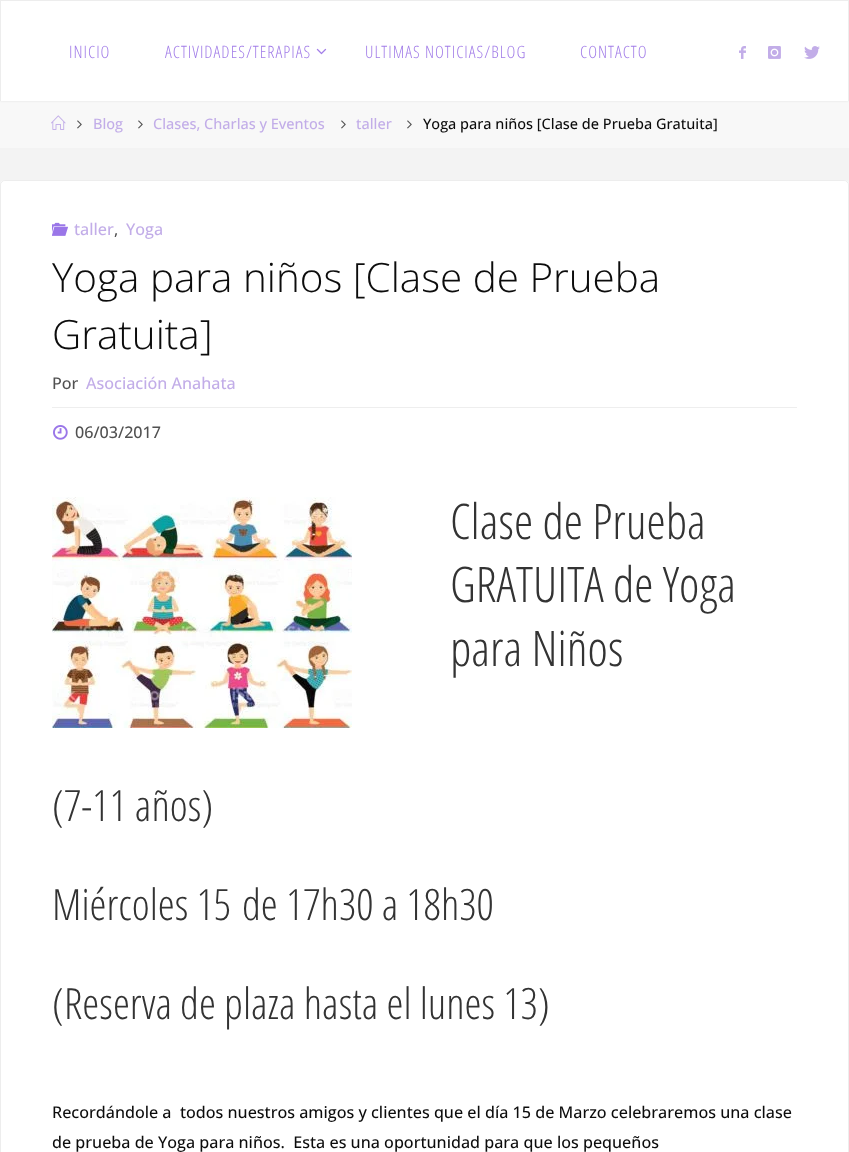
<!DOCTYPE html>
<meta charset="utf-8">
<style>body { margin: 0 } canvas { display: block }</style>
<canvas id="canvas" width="849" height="1152"></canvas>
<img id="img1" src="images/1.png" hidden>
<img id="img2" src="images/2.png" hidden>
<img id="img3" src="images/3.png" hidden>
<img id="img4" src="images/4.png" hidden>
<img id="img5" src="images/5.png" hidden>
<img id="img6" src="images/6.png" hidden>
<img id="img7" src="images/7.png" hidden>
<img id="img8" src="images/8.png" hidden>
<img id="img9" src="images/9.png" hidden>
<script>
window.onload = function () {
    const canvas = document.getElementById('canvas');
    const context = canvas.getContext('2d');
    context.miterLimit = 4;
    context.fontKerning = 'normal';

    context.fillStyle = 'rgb(243, 243, 243)';
    context.fillRect(0, 0, 849, 1152);
    context.fillStyle = 'rgb(248, 248, 248)';
    context.fillRect(0, 100, 849, 48);
    context.fillStyle = 'rgba(0, 0, 0, 0.2)';
    context.filter = 'blur(1.5px)';
    context.beginPath();
    context.rect(0, 0, 849, 100);
    context.fill();
    context.filter = 'none';
    context.strokeStyle = 'rgb(237, 237, 237)';
    context.strokeRect(0.5, 0.5, 848, 99);
    context.fillStyle = 'rgb(255, 255, 255)';
    context.fillRect(1, 1, 847, 100);
    context.drawImage(document.getElementById('img1'), 316, 48, 11, 7);
    context.drawImage(document.getElementById('img2'), 739, 46, 7, 13);
    context.drawImage(document.getElementById('img3'), 768, 46, 13, 13);
    context.drawImage(document.getElementById('img4'), 804, 46, 16, 13);
    context.drawImage(document.getElementById('img5'), 51, 115, 15, 15);
    context.drawImage(document.getElementById('img6'), 77, 120, 5, 9);
    context.drawImage(document.getElementById('img6'), 138, 120, 5, 9);
    context.drawImage(document.getElementById('img6'), 341, 120, 5, 9);
    context.drawImage(document.getElementById('img6'), 407, 120, 5, 9);
    context.beginPath();
    context.roundRect(0, 180, 849, 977, 5);
    context.fill();
    context.beginPath();
    context.roundRect(0.5, 180.5, 848, 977, 4.5);
    context.strokeStyle = 'rgba(0, 0, 0, 0.07)';
    context.stroke();
    context.drawImage(document.getElementById('img7'), 52, 222, 16, 14);
    context.fillStyle = 'rgb(238, 238, 238)';
    context.fillRect(52, 407, 745, 1);
    context.drawImage(document.getElementById('img8'), 53, 425, 15, 15);
    context.drawImage(document.getElementById('img9'), 52, 497, 300, 231);
    context.letterSpacing = '1px';
    context.font = '300 17px Open Sans Condensed';
    context.fillStyle = 'rgb(162, 125, 232)';
    context.fillText('INICIO', 69, 58);
    context.fillText('ACTIVIDADES/TERAPIAS', 165, 58);
    context.fillText('ULTIMAS NOTICIAS/BLOG', 365, 58);
    context.fillText('CONTACTO', 580, 58);
    context.letterSpacing = '0px';
    context.font = '500 14.5px Open Sans';
    context.fillStyle = 'rgb(194, 173, 232)';
    context.fillText('Blog', 93, 129);
    context.fillText('Clases, Charlas y Eventos', 153, 129);
    context.fillText('taller', 356, 129);
    context.fillStyle = 'rgb(12, 12, 12)';
    context.fillText('Yoga para niños [Clase de Prueba Gratuita]', 423, 129);
    context.font = '500 16.15px Open Sans';
    context.fillStyle = 'rgb(194, 173, 232)';
    context.fillText('taller', 74, 235);
    context.fillStyle = 'rgb(81, 81, 81)';
    context.fillText(',', 114, 235);
    context.fillStyle = 'rgb(194, 173, 232)';
    context.fillText('Yoga', 126, 235);
    context.font = '300 40.4px Open Sans';
    context.fillStyle = 'rgb(12, 12, 12)';
    context.fillText('Yoga para niños [Clase de Prueba', 52, 292);
    context.fillText('Gratuita]', 52, 349);
    context.font = '500 16.15px Open Sans';
    context.fillStyle = 'rgb(81, 81, 81)';
    context.fillText('Por', 52, 389);
    context.fillStyle = 'rgb(194, 173, 232)';
    context.fillText('Asociación Anahata', 86, 389);
    context.fillStyle = 'rgb(81, 81, 81)';
    context.fillText('06/03/2017', 75, 438);
    context.font = '300 49px Open Sans Condensed';
    context.fillStyle = 'rgb(51, 51, 51)';
    context.fillText('Clase de Prueba', 450, 539);
    context.fillText('GRATUITA de Yoga', 450, 602);
    context.fillText('para Niños', 450, 666);
    context.font = '300 43.25px Open Sans Condensed';
    context.fillText('(7-11 años)', 52, 821);
    context.fillText('Miércoles 15', 52, 920);
    context.fillText('de 17h30 a 18h30', 242, 920);
    context.fillText('(Reserva de plaza hasta el lunes 13)', 52, 1019);
    context.font = '500 16.15px Open Sans';
    context.fillStyle = 'rgb(12, 12, 12)';
    context.fillText('Recordándole a  todos nuestros amigos y clientes que el día 15 de Marzo celebraremos una clase', 52, 1118);
    context.fillText('de prueba de Yoga para niños.  Esta es una oportunidad para que los pequeños', 52, 1148);
};
</script>
